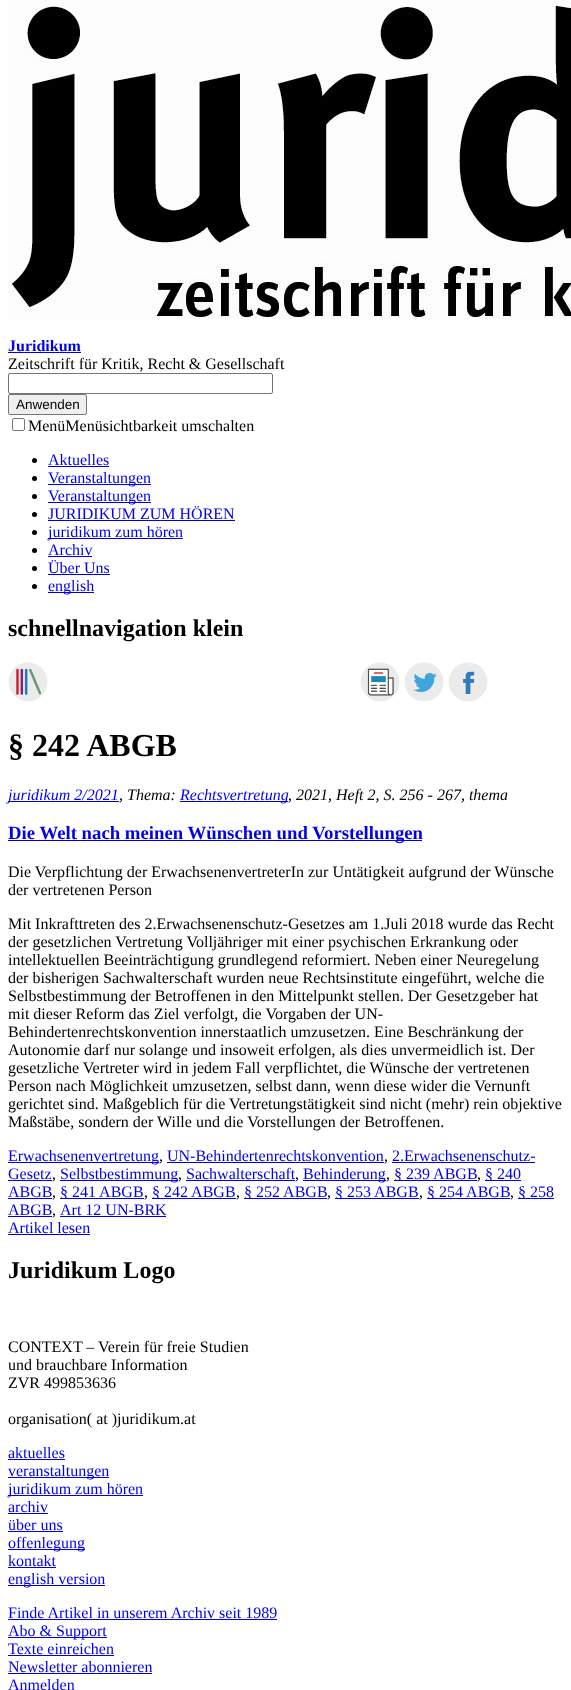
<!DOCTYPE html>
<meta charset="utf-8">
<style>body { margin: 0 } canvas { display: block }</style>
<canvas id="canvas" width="571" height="1690"></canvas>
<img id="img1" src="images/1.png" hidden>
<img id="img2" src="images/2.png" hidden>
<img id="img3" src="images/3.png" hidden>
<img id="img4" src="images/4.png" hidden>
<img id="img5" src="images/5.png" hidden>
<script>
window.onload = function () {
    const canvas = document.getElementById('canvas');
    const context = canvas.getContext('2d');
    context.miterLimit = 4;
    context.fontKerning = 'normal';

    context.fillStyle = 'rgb(255, 255, 255)';
    context.fillRect(0, 0, 571, 1690);
    context.drawImage(document.getElementById('img1'), 8, 0, 563, 319);
    context.fillStyle = 'rgb(0, 0, 238)';
    context.fillRect(8, 352, 73, 1);
    context.beginPath();
    context.roundRect(8.5, 373.5, 264, 20, 1.5);
    context.strokeStyle = 'rgb(118, 118, 118)';
    context.stroke();
    context.fillStyle = 'rgb(239, 239, 239)';
    context.beginPath();
    context.roundRect(8.5, 394.5, 78, 20, 1.5);
    context.fill();
    context.stroke();
    context.beginPath();
    context.roundRect(12.5, 418.5, 12, 12, 1.5);
    context.stroke();
    context.fillStyle = 'rgb(0, 0, 0)';
    context.beginPath();
    context.arc(34.5, 460.5, 2.5, 0, 2 * Math.PI);
    context.fill();
    context.fillStyle = 'rgb(0, 0, 238)';
    context.fillRect(48, 466, 61, 1);
    context.fillStyle = 'rgb(0, 0, 0)';
    context.beginPath();
    context.arc(34.5, 478.5, 2.5, 0, 2 * Math.PI);
    context.fill();
    context.fillStyle = 'rgb(0, 0, 238)';
    context.fillRect(48, 484, 103, 1);
    context.fillStyle = 'rgb(0, 0, 0)';
    context.beginPath();
    context.arc(34.5, 496.5, 2.5, 0, 2 * Math.PI);
    context.fill();
    context.fillStyle = 'rgb(0, 0, 238)';
    context.fillRect(48, 502, 103, 1);
    context.fillStyle = 'rgb(0, 0, 0)';
    context.beginPath();
    context.arc(34.5, 514.5, 2.5, 0, 2 * Math.PI);
    context.fill();
    context.fillStyle = 'rgb(0, 0, 238)';
    context.fillRect(48, 520, 187, 1);
    context.fillStyle = 'rgb(0, 0, 0)';
    context.beginPath();
    context.arc(34.5, 532.5, 2.5, 0, 2 * Math.PI);
    context.fill();
    context.fillStyle = 'rgb(0, 0, 238)';
    context.fillRect(48, 538, 135, 1);
    context.fillStyle = 'rgb(0, 0, 0)';
    context.beginPath();
    context.arc(34.5, 550.5, 2.5, 0, 2 * Math.PI);
    context.fill();
    context.fillStyle = 'rgb(0, 0, 238)';
    context.fillRect(48, 556, 44, 1);
    context.fillStyle = 'rgb(0, 0, 0)';
    context.beginPath();
    context.arc(34.5, 568.5, 2.5, 0, 2 * Math.PI);
    context.fill();
    context.fillStyle = 'rgb(0, 0, 238)';
    context.fillRect(48, 574, 62, 1);
    context.fillStyle = 'rgb(0, 0, 0)';
    context.beginPath();
    context.arc(34.5, 586.5, 2.5, 0, 2 * Math.PI);
    context.fill();
    context.fillStyle = 'rgb(0, 0, 238)';
    context.fillRect(48, 592, 46, 1);
    context.drawImage(document.getElementById('img2'), 8, 662, 40, 40);
    context.drawImage(document.getElementById('img3'), 360, 662, 40, 40);
    context.drawImage(document.getElementById('img4'), 404, 662, 40, 40);
    context.drawImage(document.getElementById('img5'), 448, 662, 40, 40);
    context.fillRect(8, 801, 111, 1);
    context.fillRect(180, 801, 108, 1);
    context.fillRect(8, 840, 414, 1);
    context.fillRect(8, 1162, 151, 1);
    context.fillRect(167, 1162, 217, 1);
    context.fillRect(392, 1162, 143, 1);
    context.fillRect(8, 1180, 44, 1);
    context.fillRect(60, 1180, 118, 1);
    context.fillRect(186, 1180, 109, 1);
    context.fillRect(303, 1180, 83, 1);
    context.fillRect(394, 1180, 83, 1);
    context.fillRect(485, 1180, 36, 1);
    context.fillRect(8, 1198, 44, 1);
    context.fillRect(60, 1198, 84, 1);
    context.fillRect(152, 1198, 84, 1);
    context.fillRect(244, 1198, 83, 1);
    context.fillRect(335, 1198, 84, 1);
    context.fillRect(427, 1198, 83, 1);
    context.fillRect(518, 1198, 36, 1);
    context.fillRect(8, 1216, 44, 1);
    context.fillRect(60, 1216, 106, 1);
    context.fillRect(8, 1234, 82, 1);
    context.fillRect(8, 1459, 57, 1);
    context.fillRect(8, 1477, 101, 1);
    context.fillRect(8, 1495, 135, 1);
    context.fillRect(8, 1513, 40, 1);
    context.fillRect(8, 1531, 55, 1);
    context.fillRect(8, 1549, 77, 1);
    context.fillRect(8, 1567, 48, 1);
    context.fillRect(8, 1585, 97, 1);
    context.fillRect(8, 1619, 269, 1);
    context.fillRect(8, 1637, 99, 1);
    context.fillRect(8, 1655, 106, 1);
    context.fillRect(8, 1673, 144, 1);
    context.font = 'bold 16px Liberation Serif';
    context.fillText('Juridikum', 8, 351);
    context.font = '16px Liberation Serif';
    context.fillStyle = 'rgb(0, 0, 0)';
    context.fillText('Zeitschrift für Kritik, Recht & Gesellschaft', 8, 369);
    context.font = '13.5px Liberation Sans';
    context.fillText('Anwenden', 16, 409);
    context.font = '16px Liberation Serif';
    context.fillText('MenüMenüsichtbarkeit umschalten', 28, 431);
    context.fillStyle = 'rgb(0, 0, 238)';
    context.fillText('Aktuelles', 48, 465);
    context.fillText('Veranstaltungen', 48, 483);
    context.fillText('Veranstaltungen', 48, 501);
    context.fillText('JURIDIKUM ZUM HÖREN', 48, 519);
    context.fillText('juridikum zum hören', 48, 537);
    context.fillText('Archiv', 48, 555);
    context.fillText('Über Uns', 48, 573);
    context.fillText('english', 48, 591);
    context.font = 'bold 24px Liberation Serif';
    context.fillStyle = 'rgb(0, 0, 0)';
    context.fillText('schnellnavigation klein', 8, 636);
    context.font = 'bold 32px Liberation Serif';
    context.fillText('§ 242 ABGB', 8, 756);
    context.font = 'italic 16px Liberation Serif';
    context.fillStyle = 'rgb(0, 0, 238)';
    context.fillText('juridikum 2/2021', 8, 800);
    context.fillStyle = 'rgb(0, 0, 0)';
    context.fillText(', Thema:', 119, 800);
    context.fillStyle = 'rgb(0, 0, 238)';
    context.fillText('Rechtsvertretung', 180, 800);
    context.fillStyle = 'rgb(0, 0, 0)';
    context.fillText(', 2021, Heft 2, S. 256 - 267, thema', 288, 800);
    context.font = 'bold 18.75px Liberation Serif';
    context.fillStyle = 'rgb(0, 0, 238)';
    context.fillText('Die Welt nach meinen Wünschen und Vorstellungen', 8, 839);
    context.font = '16px Liberation Serif';
    context.fillStyle = 'rgb(0, 0, 0)';
    context.fillText('Die Verpflichtung der ErwachsenenvertreterIn zur Untätigkeit aufgrund der Wünsche', 8, 877);
    context.fillText('der vertretenen Person', 8, 895);
    context.fillText('Mit Inkrafttreten des 2.Erwachsenenschutz-Gesetzes am 1.Juli 2018 wurde das Recht', 8, 929);
    context.fillText('der gesetzlichen Vertretung Volljähriger mit einer psychischen Erkrankung oder', 8, 947);
    context.fillText('intellektuellen Beeinträchtigung grundlegend reformiert. Neben einer Neuregelung', 8, 965);
    context.fillText('der bisherigen Sachwalterschaft wurden neue Rechtsinstitute eingeführt, welche die', 8, 983);
    context.fillText('Selbstbestimmung der Betroffenen in den Mittelpunkt stellen. Der Gesetzgeber hat', 8, 1001);
    context.fillText('mit dieser Reform das Ziel verfolgt, die Vorgaben der UN-', 8, 1019);
    context.fillText('Behindertenrechtskonvention innerstaatlich umzusetzen. Eine Beschränkung der', 8, 1037);
    context.fillText('Autonomie darf nur solange und insoweit erfolgen, als dies unvermeidlich ist. Der', 8, 1055);
    context.fillText('gesetzliche Vertreter wird in jedem Fall verpflichtet, die Wünsche der vertretenen', 8, 1073);
    context.fillText('Person nach Möglichkeit umzusetzen, selbst dann, wenn diese wider die Vernunft', 8, 1091);
    context.fillText('gerichtet sind. Maßgeblich für die Vertretungstätigkeit sind nicht (mehr) rein objektive', 8, 1109);
    context.fillText('Maßstäbe, sondern der Wille und die Vorstellungen der Betroffenen.', 8, 1127);
    context.fillStyle = 'rgb(0, 0, 238)';
    context.fillText('Erwachsenenvertretung', 8, 1161);
    context.fillStyle = 'rgb(0, 0, 0)';
    context.fillText(',', 159, 1161);
    context.fillStyle = 'rgb(0, 0, 238)';
    context.fillText('UN-Behindertenrechtskonvention', 167, 1161);
    context.fillStyle = 'rgb(0, 0, 0)';
    context.fillText(',', 384, 1161);
    context.fillStyle = 'rgb(0, 0, 238)';
    context.fillText('2.Erwachsenenschutz-', 392, 1161);
    context.fillText('Gesetz', 8, 1179);
    context.fillStyle = 'rgb(0, 0, 0)';
    context.fillText(',', 52, 1179);
    context.fillStyle = 'rgb(0, 0, 238)';
    context.fillText('Selbstbestimmung', 60, 1179);
    context.fillStyle = 'rgb(0, 0, 0)';
    context.fillText(',', 178, 1179);
    context.fillStyle = 'rgb(0, 0, 238)';
    context.fillText('Sachwalterschaft', 186, 1179);
    context.fillStyle = 'rgb(0, 0, 0)';
    context.fillText(',', 295, 1179);
    context.fillStyle = 'rgb(0, 0, 238)';
    context.fillText('Behinderung', 303, 1179);
    context.fillStyle = 'rgb(0, 0, 0)';
    context.fillText(',', 386, 1179);
    context.fillStyle = 'rgb(0, 0, 238)';
    context.fillText('§ 239 ABGB', 394, 1179);
    context.fillStyle = 'rgb(0, 0, 0)';
    context.fillText(',', 477, 1179);
    context.fillStyle = 'rgb(0, 0, 238)';
    context.fillText('§ 240', 485, 1179);
    context.fillText('ABGB', 8, 1197);
    context.fillStyle = 'rgb(0, 0, 0)';
    context.fillText(',', 52, 1197);
    context.fillStyle = 'rgb(0, 0, 238)';
    context.fillText('§ 241 ABGB', 60, 1197);
    context.fillStyle = 'rgb(0, 0, 0)';
    context.fillText(',', 144, 1197);
    context.fillStyle = 'rgb(0, 0, 238)';
    context.fillText('§ 242 ABGB', 152, 1197);
    context.fillStyle = 'rgb(0, 0, 0)';
    context.fillText(',', 236, 1197);
    context.fillStyle = 'rgb(0, 0, 238)';
    context.fillText('§ 252 ABGB', 244, 1197);
    context.fillStyle = 'rgb(0, 0, 0)';
    context.fillText(',', 327, 1197);
    context.fillStyle = 'rgb(0, 0, 238)';
    context.fillText('§ 253 ABGB', 335, 1197);
    context.fillStyle = 'rgb(0, 0, 0)';
    context.fillText(',', 419, 1197);
    context.fillStyle = 'rgb(0, 0, 238)';
    context.fillText('§ 254 ABGB', 427, 1197);
    context.fillStyle = 'rgb(0, 0, 0)';
    context.fillText(',', 510, 1197);
    context.fillStyle = 'rgb(0, 0, 238)';
    context.fillText('§ 258', 518, 1197);
    context.fillText('ABGB', 8, 1215);
    context.fillStyle = 'rgb(0, 0, 0)';
    context.fillText(',', 52, 1215);
    context.fillStyle = 'rgb(0, 0, 238)';
    context.fillText('Art 12 UN-BRK', 60, 1215);
    context.fillText('Artikel lesen', 8, 1233);
    context.font = 'bold 24px Liberation Serif';
    context.fillStyle = 'rgb(0, 0, 0)';
    context.fillText('Juridikum Logo', 8, 1278);
    context.font = '16px Liberation Serif';
    context.fillText('CONTEXT – Verein für freie Studien', 8, 1352);
    context.fillText('und brauchbare Information', 8, 1370);
    context.fillText('ZVR 499853636', 8, 1388);
    context.fillText('organisation( at )juridikum.at', 8, 1424);
    context.fillStyle = 'rgb(0, 0, 238)';
    context.fillText('aktuelles', 8, 1458);
    context.fillText('veranstaltungen', 8, 1476);
    context.fillText('juridikum zum hören', 8, 1494);
    context.fillText('archiv', 8, 1512);
    context.fillText('über uns', 8, 1530);
    context.fillText('offenlegung', 8, 1548);
    context.fillText('kontakt', 8, 1566);
    context.fillText('english version', 8, 1584);
    context.fillText('Finde Artikel in unserem Archiv seit 1989', 8, 1618);
    context.fillText('Abo & Support', 8, 1636);
    context.fillText('Texte einreichen', 8, 1654);
    context.fillText('Newsletter abonnieren', 8, 1672);
    context.fillText('Anmelden', 8, 1690);
};
</script>
